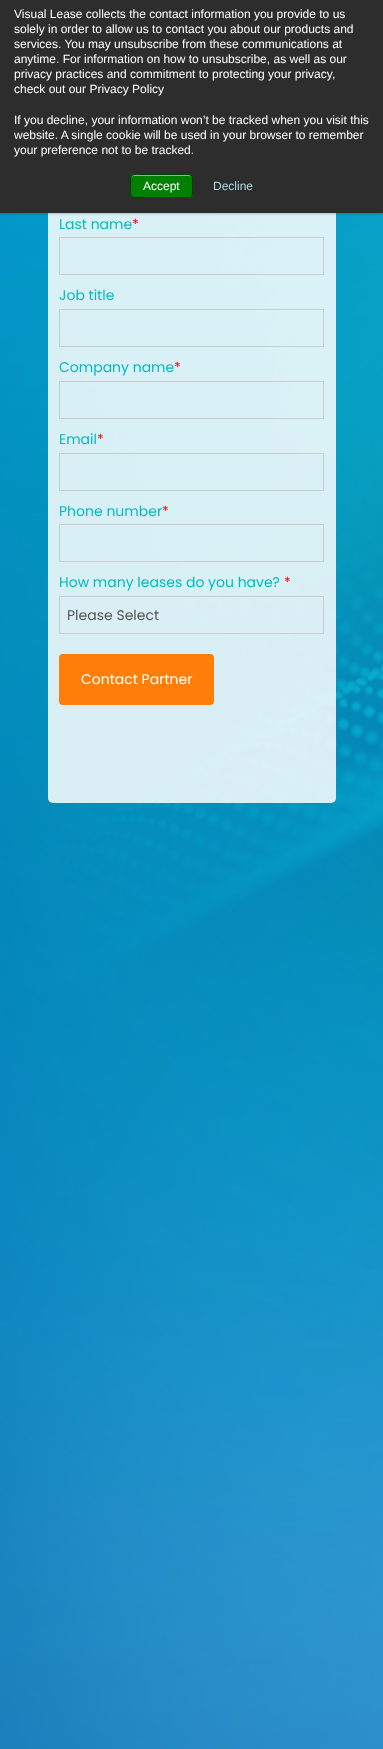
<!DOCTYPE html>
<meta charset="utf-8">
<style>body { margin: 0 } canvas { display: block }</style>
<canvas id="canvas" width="383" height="1749"></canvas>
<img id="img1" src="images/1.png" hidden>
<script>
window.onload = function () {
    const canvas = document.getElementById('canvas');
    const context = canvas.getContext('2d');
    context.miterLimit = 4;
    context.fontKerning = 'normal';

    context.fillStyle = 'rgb(255, 255, 255)';
    context.fillRect(0, 0, 383, 1749);
    context.drawImage(document.getElementById('img1'), 0, 213, 383, 1536);
    context.fillStyle = 'rgba(255, 255, 255, 0.85)';
    context.beginPath();
    context.roundRect(48, 84, 288, 719, 5);
    context.fill();
    context.fillStyle = 'rgba(0, 0, 0, 0.2)';
    context.filter = 'blur(1px)';
    context.beginPath();
    context.rect(0, 0, 383, 214);
    context.fill();
    context.filter = 'none';
    context.fillStyle = 'rgb(45, 45, 45)';
    context.fillRect(0, 0, 383, 213);
    context.fillStyle = 'rgb(0, 128, 0)';
    context.beginPath();
    context.roundRect(130, 174, 63, 24, 4);
    context.fill();
    context.fillStyle = 'rgb(128, 192, 128)';
    context.beginPath();
    context.moveTo(134, 176);
    context.lineTo(189, 176);
    context.bezierCurveTo(191, 176, 192, 177, 192, 179);
    context.bezierCurveTo(192, 173, 184, 175, 180, 175);
    context.lineTo(143, 175);
    context.bezierCurveTo(139, 175, 131, 173, 131, 179);
    context.bezierCurveTo(131, 177, 132, 176, 134, 176);
    context.closePath();
    context.fill();
    context.beginPath();
    context.roundRect(130.5, 174.5, 62, 23, 3.5);
    context.strokeStyle = 'rgba(0, 0, 0, 0.5)';
    context.stroke();
    context.strokeStyle = 'rgb(204, 204, 204)';
    context.strokeRect(59.5, 237.5, 264, 37);
    context.strokeRect(59.5, 309.5, 264, 37);
    context.strokeRect(59.5, 381.5, 264, 37);
    context.strokeRect(59.5, 453.5, 264, 37);
    context.strokeRect(59.5, 524.5, 264, 37);
    context.strokeRect(59.5, 596.5, 264, 37);
    context.fillStyle = 'rgb(255, 126, 9)';
    context.beginPath();
    context.roundRect(59, 654, 155, 51, 4);
    context.fill();
    context.font = '12px Liberation Sans';
    context.fillStyle = 'rgb(255, 255, 255)';
    context.fillText('Visual Lease collects the contact information you provide to us', 14, 18);
    context.fillText('solely in order to allow us to contact you about our products and', 14, 33);
    context.fillText('services. You may unsubscribe from these communications at', 14, 48);
    context.fillText('anytime. For information on how to unsubscribe, as well as our', 14, 63);
    context.fillText('privacy practices and commitment to protecting your privacy,', 14, 78);
    context.fillText('check out our Privacy Policy', 14, 93);
    context.fillText('If you decline, your information won’t be tracked when you visit this', 14, 124);
    context.fillText('website. A single cookie will be used in your browser to remember', 14, 139);
    context.fillText('your preference not to be tracked.', 14, 154);
    context.fillText('Accept', 143, 190);
    context.fillStyle = 'rgb(173, 216, 230)';
    context.fillText('Decline', 213, 190);
    context.font = '14px Poppins';
    context.fillStyle = 'rgb(0, 189, 189)';
    context.fillText('Last name', 59, 229);
    context.fillStyle = 'rgb(255, 0, 0)';
    context.fillText('*', 132, 229);
    context.fillStyle = 'rgb(0, 189, 189)';
    context.fillText('Job title', 59, 300);
    context.fillText('Company name', 59, 372);
    context.fillStyle = 'rgb(255, 0, 0)';
    context.fillText('*', 174, 372);
    context.fillStyle = 'rgb(0, 189, 189)';
    context.fillText('Email', 59, 444);
    context.fillStyle = 'rgb(255, 0, 0)';
    context.fillText('*', 97, 444);
    context.fillStyle = 'rgb(0, 189, 189)';
    context.fillText('Phone number', 59, 516);
    context.fillStyle = 'rgb(255, 0, 0)';
    context.fillText('*', 162, 516);
    context.fillStyle = 'rgb(0, 189, 189)';
    context.fillText('How many leases do you have?', 59, 587);
    context.fillStyle = 'rgb(255, 0, 0)';
    context.fillText('*', 284, 587);
    context.fillStyle = 'rgb(85, 85, 85)';
    context.fillText('Please Select', 67, 620);
    context.fillStyle = 'rgb(255, 255, 255)';
    context.fillText('Contact Partner', 81, 684);
};
</script>
